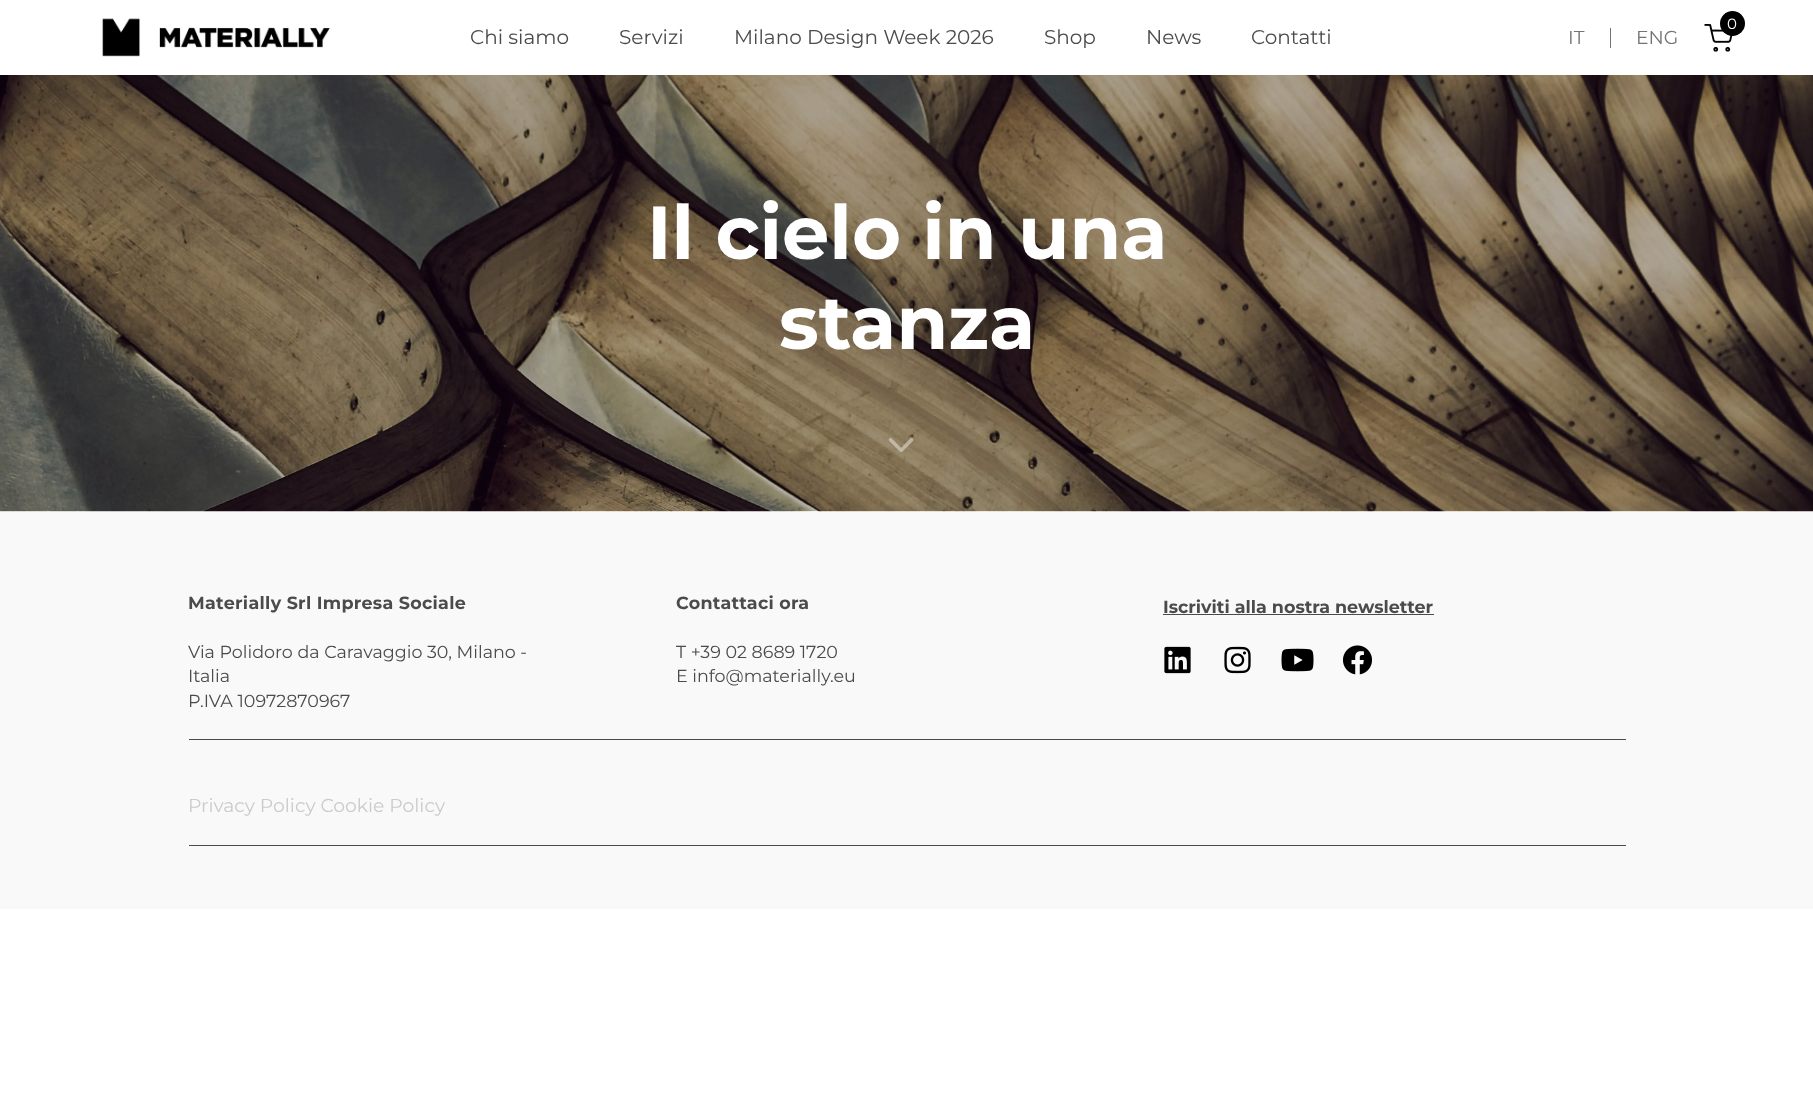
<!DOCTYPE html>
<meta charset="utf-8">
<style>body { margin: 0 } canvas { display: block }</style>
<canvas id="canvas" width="1813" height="1113"></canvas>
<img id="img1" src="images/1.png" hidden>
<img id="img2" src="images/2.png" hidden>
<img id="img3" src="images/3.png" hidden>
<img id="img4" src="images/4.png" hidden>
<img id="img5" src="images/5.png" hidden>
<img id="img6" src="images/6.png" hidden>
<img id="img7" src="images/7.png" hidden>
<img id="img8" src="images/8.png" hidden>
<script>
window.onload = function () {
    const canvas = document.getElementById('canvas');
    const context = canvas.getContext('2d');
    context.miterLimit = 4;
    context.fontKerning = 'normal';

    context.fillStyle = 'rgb(255, 255, 255)';
    context.fillRect(0, 0, 1813, 1113);
    context.drawImage(document.getElementById('img1'), 102, 18, 228, 39);
    context.drawImage(document.getElementById('img2'), 1704, 24, 29, 28);
    context.fillStyle = 'rgb(0, 0, 0)';
    context.beginPath();
    context.arc(1732.5, 23.5, 12.5, 0, 2 * Math.PI);
    context.fill();
    context.fillStyle = 'rgb(116, 116, 116)';
    context.fillRect(1610, 28, 1, 20);
    context.fillStyle = 'rgb(249, 249, 249)';
    context.fillRect(0, 511, 1813, 398);
    context.drawImage(document.getElementById('img3'), 0, 75, 1813, 437);
    context.drawImage(document.getElementById('img4'), 888, 438, 26, 14);
    context.fillStyle = 'rgb(75, 75, 75)';
    context.fillRect(1163, 614, 271, 1);
    context.drawImage(document.getElementById('img5'), 1164, 646, 27, 28);
    context.drawImage(document.getElementById('img6'), 1224, 646, 27, 28);
    context.drawImage(document.getElementById('img7'), 1281, 648, 33, 24);
    context.drawImage(document.getElementById('img8'), 1343, 645, 29, 30);
    context.fillRect(189, 739, 1437, 1);
    context.fillRect(189, 845, 1437, 1);
    context.font = '20px Montserrat';
    context.fillText('Chi siamo', 470, 44);
    context.fillText('Servizi', 619, 44);
    context.fillText('Milano Design Week 2026', 734, 44);
    context.fillText('Shop', 1044, 44);
    context.fillText('News', 1146, 44);
    context.fillText('Contatti', 1251, 44);
    context.font = '15px Montserrat';
    context.fillStyle = 'rgb(255, 255, 255)';
    context.fillText('0', 1727, 29);
    context.font = '18.75px Montserrat';
    context.fillStyle = 'rgb(116, 116, 116)';
    context.fillText('IT', 1568, 44);
    context.fillText('ENG', 1636, 44);
    context.font = 'bold 75px Montserrat';
    context.fillStyle = 'rgb(255, 255, 255)';
    context.fillText('Il cielo in una', 647, 259);
    context.fillText('stanza', 779, 349);
    context.letterSpacing = '0.3px';
    context.font = 'bold 17.5px Montserrat';
    context.fillStyle = 'rgb(75, 75, 75)';
    context.fillText('Materially Srl Impresa Sociale', 188, 609);
    context.letterSpacing = '0px';
    context.font = '17.5px Montserrat';
    context.fillText('Via Polidoro da Caravaggio 30, Milano -', 188, 658);
    context.fillText('Italia', 188, 682);
    context.fillText('P.IVA 10972870967', 188, 707);
    context.letterSpacing = '0.3px';
    context.font = 'bold 17.5px Montserrat';
    context.fillText('Contattaci ora', 676, 609);
    context.letterSpacing = '0px';
    context.font = '17.5px Montserrat';
    context.fillText('T +39 02 8689 1720', 676, 658);
    context.fillText('E info@materially.eu', 676, 682);
    context.font = 'bold 17.5px Montserrat';
    context.fillText('Iscriviti alla nostra newsletter', 1163, 613);
    context.font = '18.75px Montserrat';
    context.fillStyle = 'rgb(203, 203, 203)';
    context.fillText('Privacy Policy Cookie Policy', 188, 812);
};
</script>
